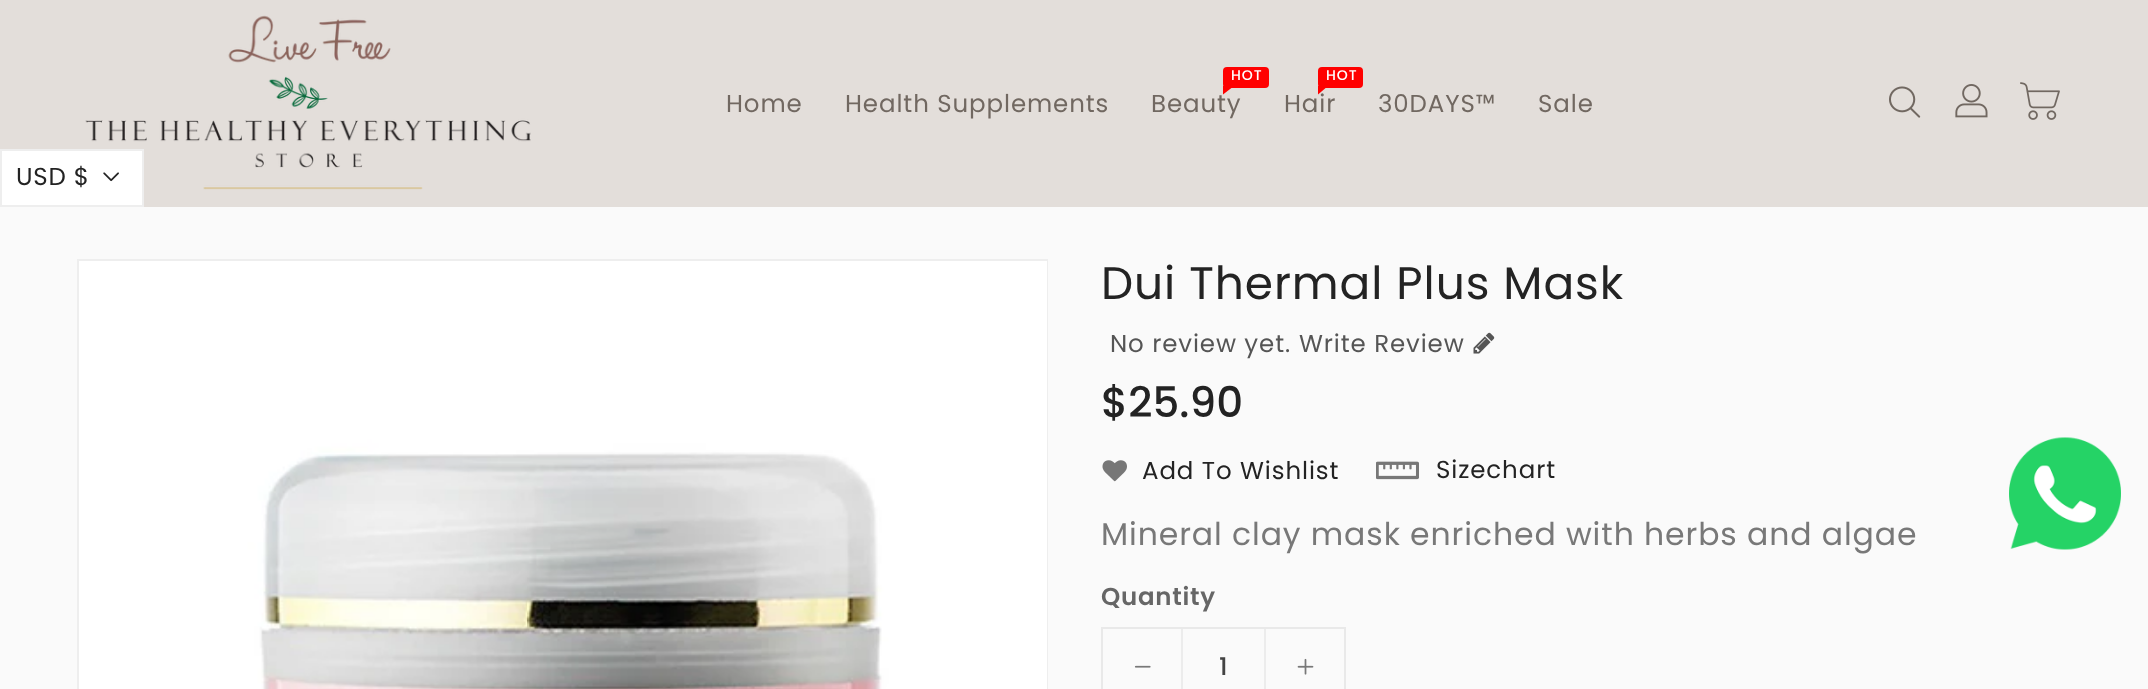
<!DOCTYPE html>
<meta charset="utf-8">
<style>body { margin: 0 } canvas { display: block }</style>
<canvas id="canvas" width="2148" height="689"></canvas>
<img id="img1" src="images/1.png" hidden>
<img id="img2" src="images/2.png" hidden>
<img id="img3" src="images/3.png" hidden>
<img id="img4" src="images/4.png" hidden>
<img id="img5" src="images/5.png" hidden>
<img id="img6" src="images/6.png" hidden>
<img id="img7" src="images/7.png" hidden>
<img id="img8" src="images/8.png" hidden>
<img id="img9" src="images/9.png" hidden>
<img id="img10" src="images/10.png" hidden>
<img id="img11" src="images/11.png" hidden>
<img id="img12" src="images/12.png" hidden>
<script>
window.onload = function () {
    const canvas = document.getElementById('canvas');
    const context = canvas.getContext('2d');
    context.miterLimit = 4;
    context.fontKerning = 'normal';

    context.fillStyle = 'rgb(250, 250, 250)';
    context.fillRect(0, 0, 2148, 689);
    context.fillStyle = 'rgb(227, 222, 218)';
    context.fillRect(0, 0, 2148, 207);
    context.drawImage(document.getElementById('img1'), 85, 15, 446, 175);
    context.fillStyle = 'rgb(255, 0, 0)';
    context.beginPath();
    context.roundRect(1223, 67, 46, 21, 4);
    context.fill();
    context.beginPath();
    context.roundRect(1318, 67, 45, 21, 4);
    context.fill();
    context.drawImage(document.getElementById('img2'), 1889, 86, 32, 32);
    context.drawImage(document.getElementById('img3'), 1955, 84, 33, 34);
    context.drawImage(document.getElementById('img4'), 2020, 82, 40, 38);
    context.fillStyle = 'rgb(255, 255, 255)';
    context.beginPath();
    context.rect(1, 150, 142, 56);
    context.fill();
    context.strokeStyle = 'rgb(238, 238, 238)';
    context.lineWidth = 2;
    context.stroke();
    context.drawImage(document.getElementById('img5'), 103, 172, 16, 10);
    context.strokeRect(78, 260, 969, 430);
    context.drawImage(document.getElementById('img6'), 79, 261, 968, 428);
    context.drawImage(document.getElementById('img7'), 1473, 332, 22, 22);
    context.drawImage(document.getElementById('img8'), 1102, 460, 25, 22);
    context.drawImage(document.getElementById('img9'), 1376, 461, 43, 19);
    context.strokeStyle = 'rgb(233, 233, 233)';
    context.strokeRect(1102, 628, 243, 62);
    context.drawImage(document.getElementById('img10'), 1134, 665, 17, 3);
    context.fillStyle = 'rgba(233, 233, 233, 0.85)';
    context.fillRect(1264, 628, 2, 61);
    context.fillRect(1181, 628, 2, 61);
    context.drawImage(document.getElementById('img11'), 1297, 658, 17, 17);
    context.drawImage(document.getElementById('img12'), 2009, 437, 112, 113);
    context.letterSpacing = '0.9px';
    context.font = '24.5px Poppins';
    context.fillStyle = 'rgb(113, 104, 97)';
    context.fillText('Home', 726, 112);
    context.fillText('Health Supplements', 845, 112);
    context.font = '500 14px Poppins';
    context.fillStyle = 'rgb(255, 255, 255)';
    context.fillText('HOT', 1231, 80);
    context.font = '24.5px Poppins';
    context.fillStyle = 'rgb(113, 104, 97)';
    context.fillText('Beauty', 1151, 112);
    context.fillStyle = 'rgb(255, 0, 0)';
    context.beginPath();
    context.moveTo(1223, 86);
    context.lineTo(1234, 86);
    context.lineTo(1223, 94.5);
    context.closePath();
    context.fill();
    context.font = '500 14px Poppins';
    context.fillStyle = 'rgb(255, 255, 255)';
    context.fillText('HOT', 1326, 80);
    context.font = '24.5px Poppins';
    context.fillStyle = 'rgb(113, 104, 97)';
    context.fillText('Hair', 1284, 112);
    context.fillStyle = 'rgb(255, 0, 0)';
    context.beginPath();
    context.moveTo(1318, 86);
    context.lineTo(1328, 86);
    context.lineTo(1318, 94.5);
    context.closePath();
    context.fill();
    context.fillStyle = 'rgb(113, 104, 97)';
    context.fillText('30DAYS™', 1378, 112);
    context.fillText('Sale', 1538, 112);
    context.letterSpacing = '0.75px';
    context.fillStyle = 'rgb(35, 35, 35)';
    context.fillText('USD $', 16, 185);
    context.letterSpacing = '0.9px';
    context.font = '45.5px Poppins';
    context.fillText('Dui Thermal Plus Mask', 1101, 299);
    context.font = '24.5px Poppins';
    context.fillStyle = 'rgb(85, 85, 85)';
    context.fillText('No review yet.', 1110, 352);
    context.fillText('Write Review', 1299, 352);
    context.letterSpacing = '0px';
    context.font = '500 42px Poppins';
    context.fillStyle = 'rgb(35, 35, 35)';
    context.fillText('$25.90', 1101, 417);
    context.letterSpacing = '0.9px';
    context.font = '24.5px Poppins';
    context.fillText('Add To Wishlist', 1142, 479);
    context.fillText('Sizechart', 1436, 478);
    context.font = '31.5px Poppins';
    context.fillStyle = 'rgb(120, 120, 120)';
    context.fillText('Mineral clay mask enriched with herbs and algae', 1101, 545);
    context.letterSpacing = '0.75px';
    context.font = '600 24.5px Poppins';
    context.fillStyle = 'rgb(102, 102, 102)';
    context.fillText('Quantity', 1101, 605);
    context.letterSpacing = '0px';
    context.font = '500 24.5px Poppins';
    context.fillStyle = 'rgb(67, 67, 67)';
    context.fillText('1', 1219, 675);
};
</script>
